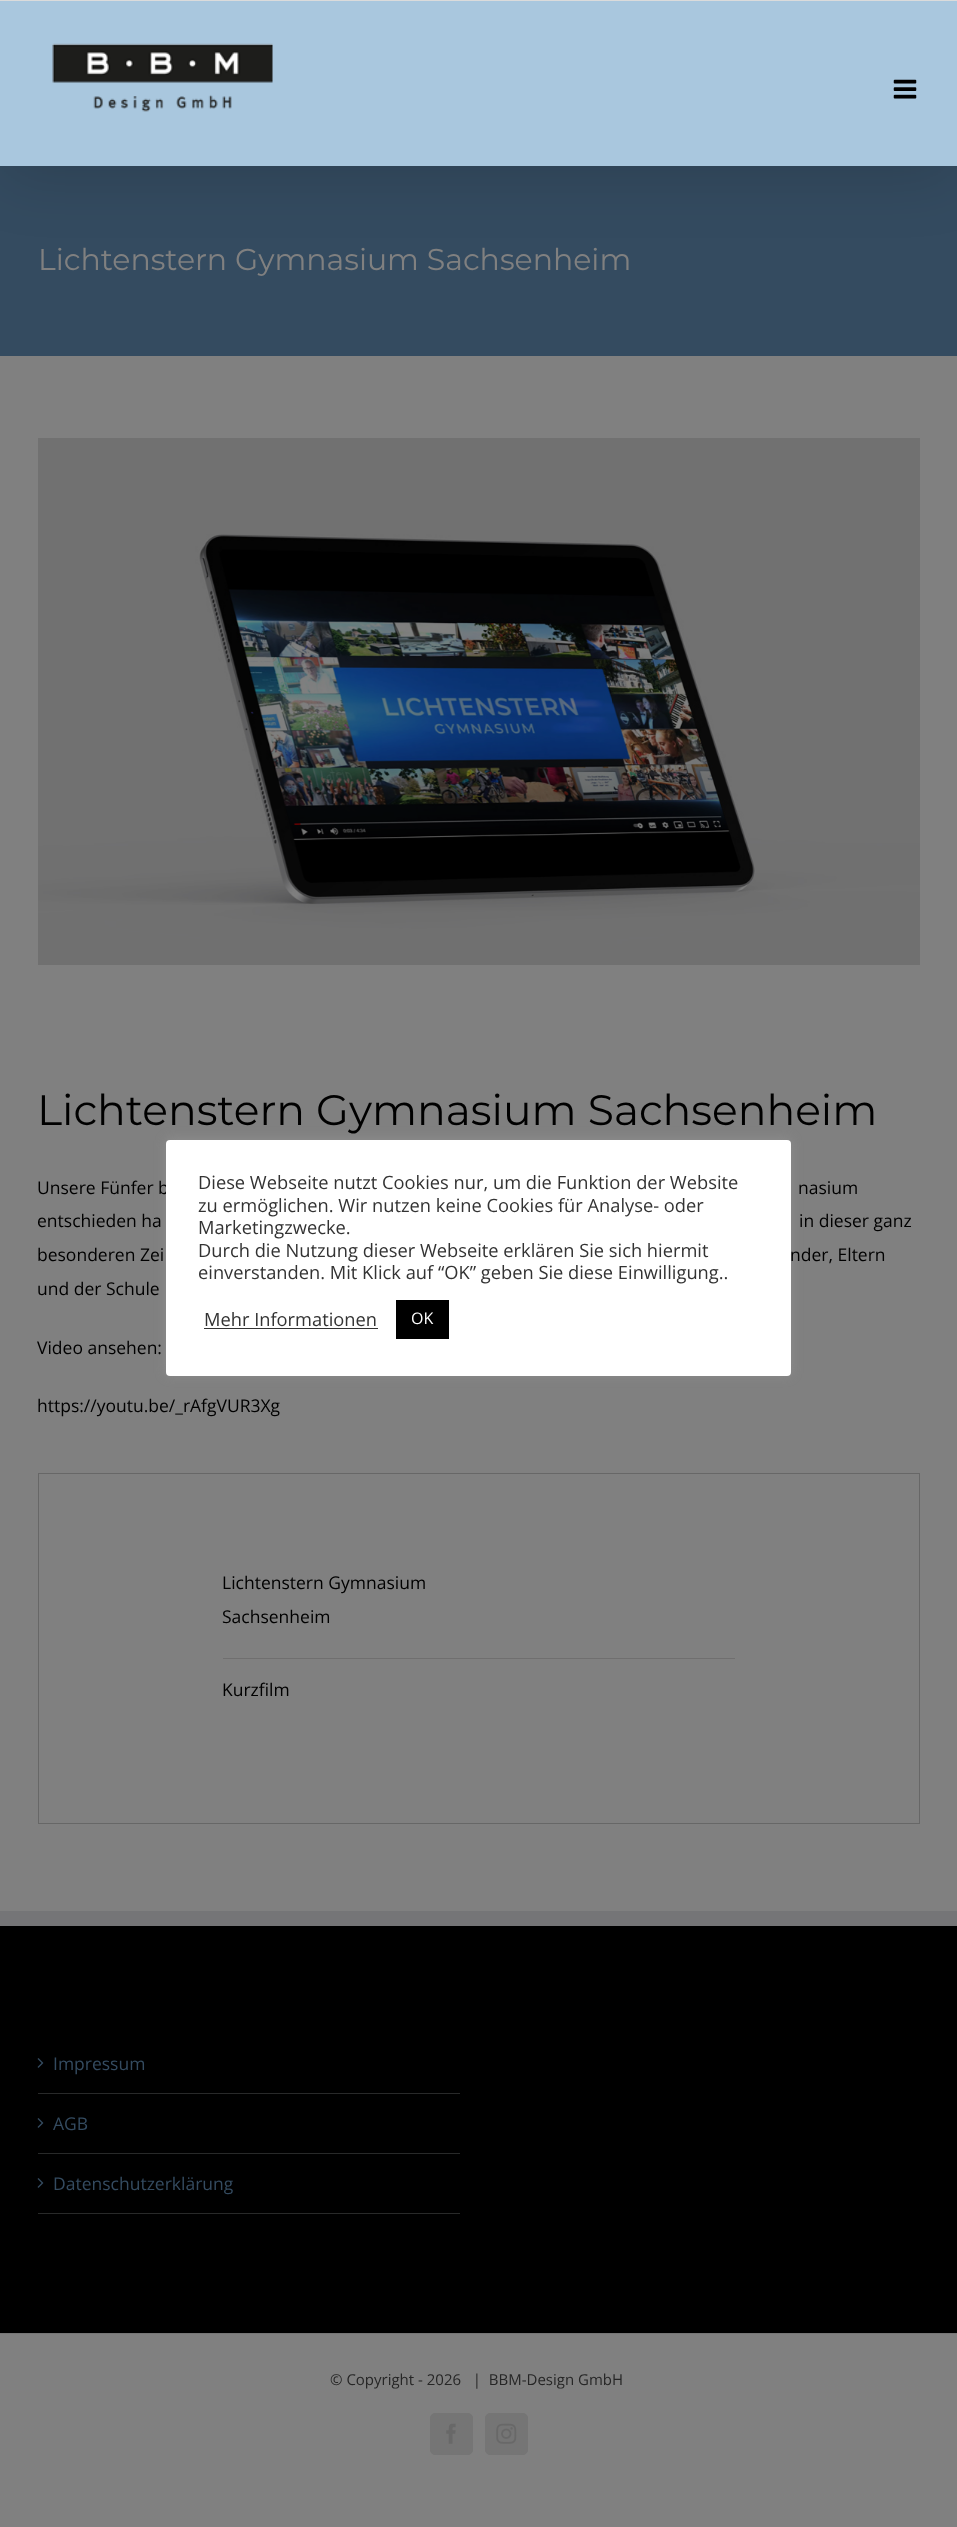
<!DOCTYPE html>
<meta charset="utf-8">
<style>body { margin: 0 } canvas { display: block }</style>
<canvas id="canvas" width="957" height="2527"></canvas>
<img id="img1" src="images/1.png" hidden>
<img id="img2" src="images/2.png" hidden>
<img id="img3" src="images/3.png" hidden>
<img id="img4" src="images/4.png" hidden>
<img id="img5" src="images/5.png" hidden>
<img id="img6" src="images/6.png" hidden>
<script>
window.onload = function () {
    const canvas = document.getElementById('canvas');
    const context = canvas.getContext('2d');
    context.miterLimit = 4;
    context.fontKerning = 'normal';

    context.fillStyle = 'rgb(128, 128, 128)';
    context.fillRect(0, 0, 957, 2527);
    context.fillStyle = 'rgb(52, 75, 96)';
    context.fillRect(0, 166, 957, 190);
    context.fillStyle = 'rgba(0, 0, 0, 0.14)';
    context.filter = 'blur(31px)';
    context.beginPath();
    context.rect(3, 15, 952, 161);
    context.fill();
    context.filter = 'none';
    context.fillStyle = 'rgb(219, 219, 219)';
    context.fillRect(0, 0, 957, 1);
    context.fillStyle = 'rgb(169, 199, 222)';
    context.fillRect(0, 1, 957, 165);
    context.drawImage(document.getElementById('img1'), 52, 43, 221, 69);
    context.drawImage(document.getElementById('img2'), 893, 79, 24, 20);
    context.drawImage(document.getElementById('img3'), 38, 438, 882, 527);
    context.strokeStyle = 'rgb(103, 103, 103)';
    context.strokeRect(38.5, 1473.5, 881, 350);
    context.fillStyle = 'rgb(112, 111, 111)';
    context.fillRect(223, 1658, 512, 1);
    context.fillStyle = 'rgb(0, 0, 0)';
    context.fillRect(0, 1926, 957, 407);
    context.fillStyle = 'rgb(117, 117, 119)';
    context.fillRect(0, 1911, 957, 15);
    context.fillStyle = 'rgb(40, 41, 41)';
    context.fillRect(38, 2093, 422, 1);
    context.drawImage(document.getElementById('img4'), 37, 2058, 7, 10);
    context.fillRect(38, 2153, 422, 1);
    context.drawImage(document.getElementById('img4'), 37, 2118, 7, 10);
    context.fillRect(38, 2213, 422, 1);
    context.drawImage(document.getElementById('img4'), 37, 2178, 7, 10);
    context.fillStyle = 'rgb(117, 117, 117)';
    context.fillRect(0, 2333, 957, 1);
    context.beginPath();
    context.roundRect(430.5, 2413.5, 42, 41, 4.5);
    context.fill();
    context.strokeStyle = 'rgb(117, 117, 117)';
    context.stroke();
    context.drawImage(document.getElementById('img5'), 446, 2423, 10, 21);
    context.beginPath();
    context.roundRect(485.5, 2413.5, 42, 41, 4.5);
    context.fill();
    context.stroke();
    context.drawImage(document.getElementById('img6'), 496, 2423, 21, 21);
    context.fillStyle = 'rgba(172, 171, 171, 0.3)';
    context.filter = 'blur(6px)';
    context.beginPath();
    context.roundRect(166, 1139, 625, 236, 4);
    context.fill();
    context.filter = 'none';
    context.font = '100 30px Montserrat';
    context.fillStyle = 'rgb(128, 128, 128)';
    context.fillText('Lichtenstern Gymnasium Sachsenheim', 38, 270);
    context.font = '100 42.5px Montserrat';
    context.fillStyle = 'rgb(0, 0, 0)';
    context.fillText('Lichtenstern Gymnasium Sachsenheim', 37, 1125);
    context.font = '17.5px Open Sans';
    context.fillText('Unsere Fünfer b', 37, 1194);
    context.fillText('nasium', 798, 1194);
    context.fillText('entschieden ha', 37, 1227);
    context.fillText('in dieser ganz', 799, 1227);
    context.fillText('besonderen Zei', 37, 1261);
    context.fillText('nder, Eltern', 790, 1261);
    context.fillText('und der Schule', 37, 1295);
    context.fillText('Video ansehen:', 37, 1354);
    context.fillText('https://youtu.be/_rAfgVUR3Xg', 37, 1412);
    context.fillText('Lichtenstern Gymnasium', 222, 1589);
    context.fillText('Sachsenheim', 222, 1623);
    context.fillText('Kurzfilm', 222, 1696);
    context.fillStyle = 'rgb(52, 75, 96)';
    context.fillText('Impressum', 53, 2070);
    context.fillText('AGB', 53, 2130);
    context.fillText('Datenschutzerklärung', 53, 2190);
    context.font = '15px Open Sans';
    context.fillStyle = 'rgb(38, 38, 38)';
    context.fillText('© Copyright - 2026   |  BBM-Design GmbH', 330, 2385);
    context.fillStyle = 'rgb(255, 255, 255)';
    context.beginPath();
    context.roundRect(166, 1140, 625, 236, 4);
    context.fill();
    context.font = '18.3px Open Sans';
    context.fillStyle = 'rgb(51, 51, 51)';
    context.fillText('Diese Webseite nutzt Cookies nur, um die Funktion der Website', 198, 1189);
    context.fillText('zu ermöglichen. Wir nutzen keine Cookies für Analyse- oder', 198, 1212);
    context.fillText('Marketingzwecke.', 198, 1234);
    context.fillText('Durch die Nutzung dieser Webseite erklären Sie sich hiermit', 198, 1257);
    context.fillText('einverstanden. Mit Klick auf “OK” geben Sie diese Einwilligung..', 198, 1279);
    context.fillText('Mehr Informationen', 204, 1326);
    context.fillRect(204, 1328, 174, 1);
    context.fillStyle = 'rgb(0, 0, 0)';
    context.fillRect(396, 1300, 53, 39);
    context.font = '16px Open Sans';
    context.fillStyle = 'rgb(255, 255, 255)';
    context.fillText('OK', 411, 1324);
};
</script>
